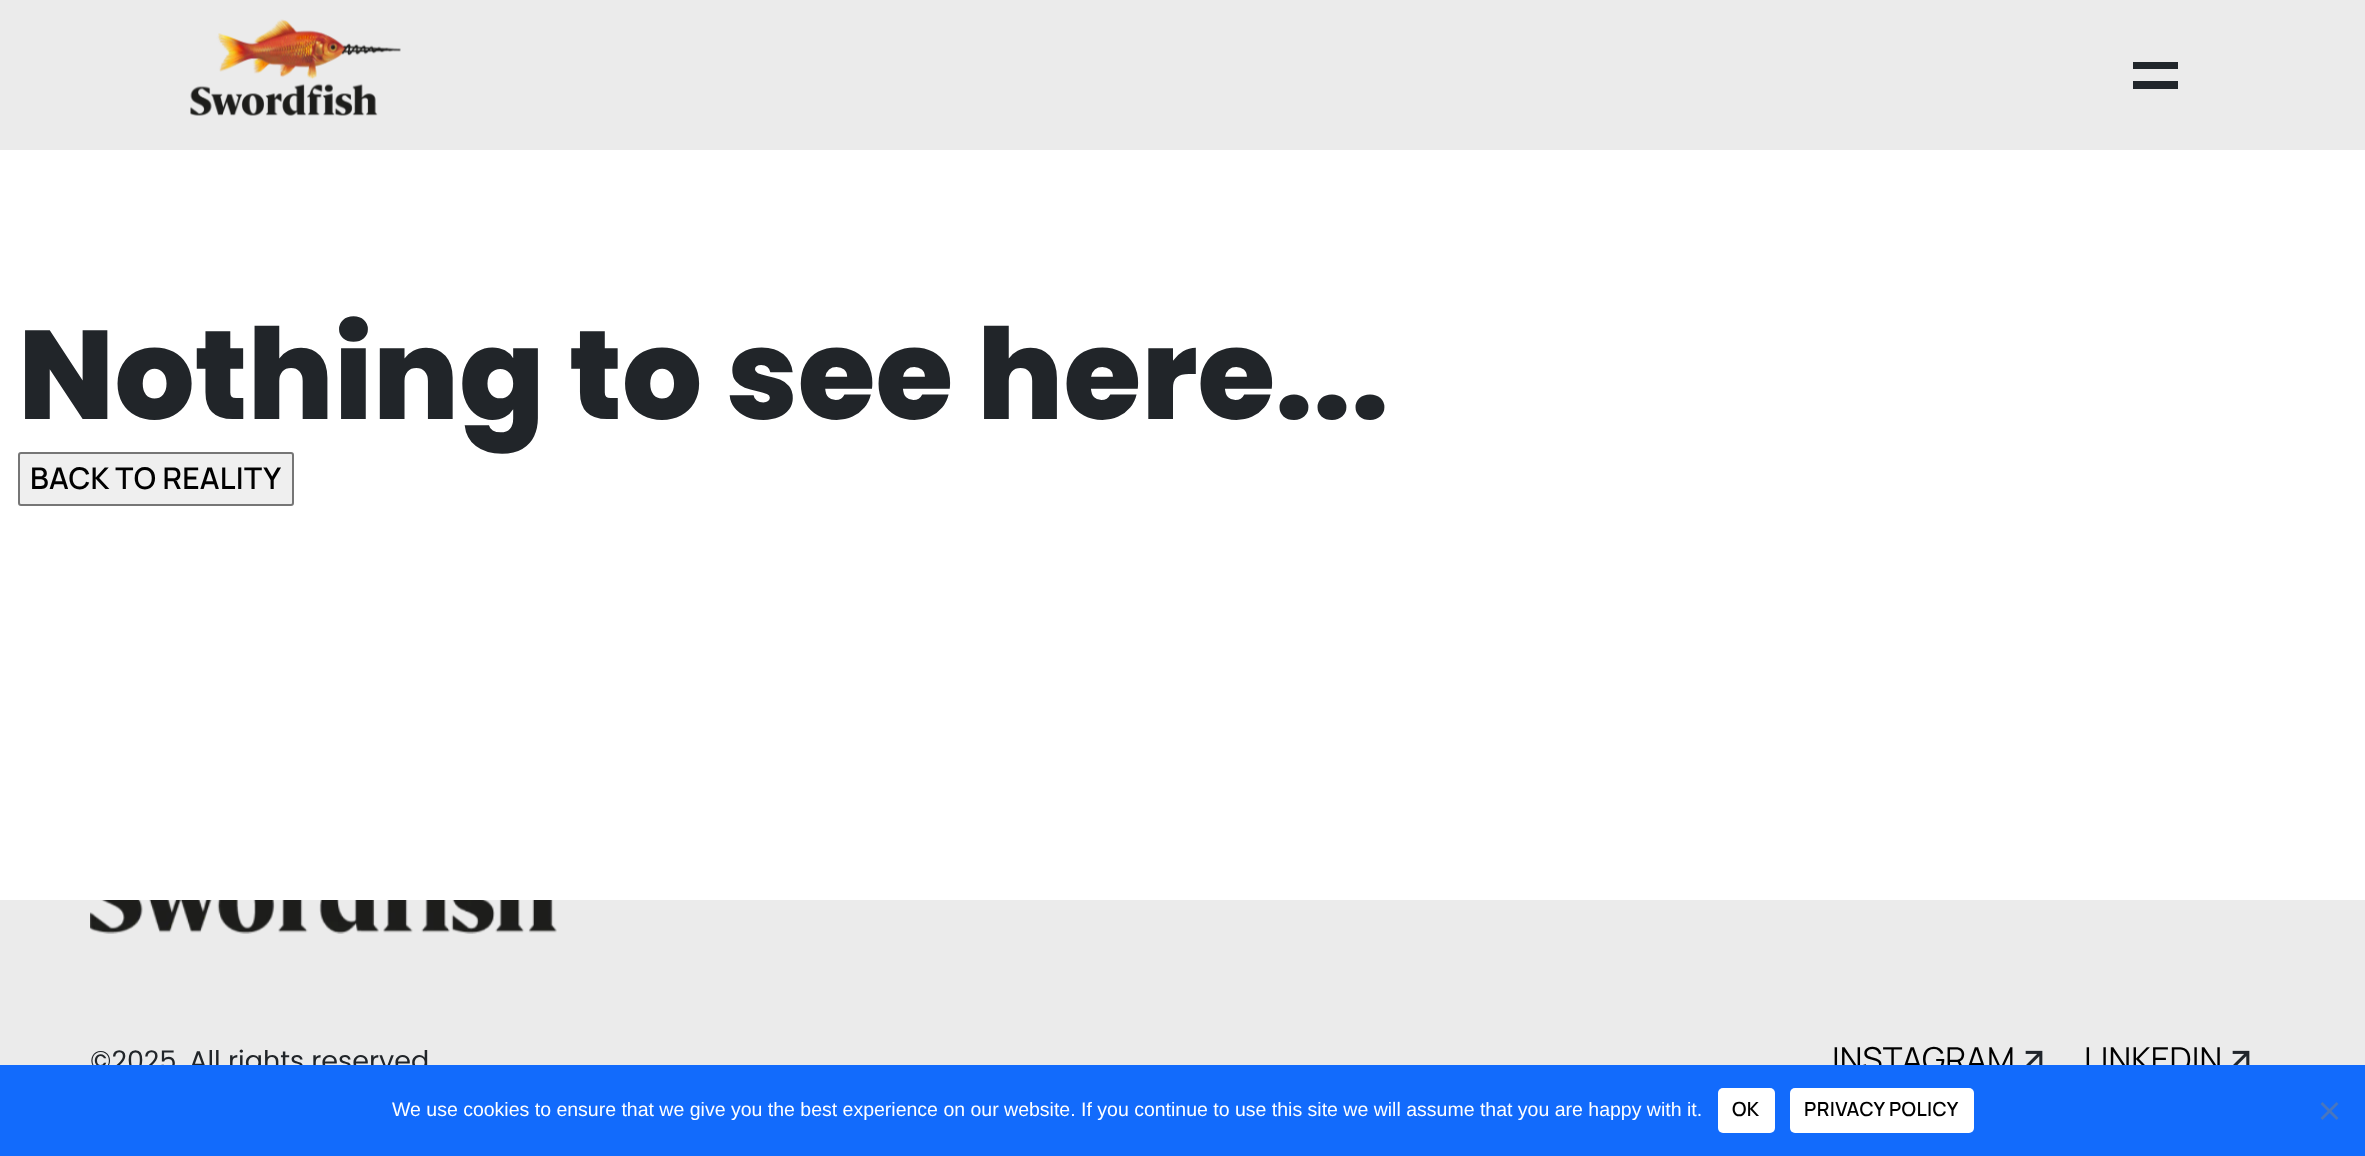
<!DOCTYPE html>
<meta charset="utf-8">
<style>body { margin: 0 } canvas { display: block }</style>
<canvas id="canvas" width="2365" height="1156"></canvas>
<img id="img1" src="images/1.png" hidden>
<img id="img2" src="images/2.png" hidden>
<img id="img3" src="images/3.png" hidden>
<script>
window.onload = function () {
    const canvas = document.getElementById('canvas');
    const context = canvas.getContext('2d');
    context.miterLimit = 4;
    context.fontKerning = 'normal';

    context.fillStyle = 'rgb(235, 235, 235)';
    context.fillRect(0, 0, 2365, 1156);
    context.drawImage(document.getElementById('img1'), 190, 19, 211, 97);
    context.fillStyle = 'rgb(33, 38, 43)';
    context.fillRect(2133, 62, 45, 7);
    context.fillRect(2133, 81, 45, 8);
    context.fillStyle = 'rgb(255, 255, 255)';
    context.fillRect(0, 150, 2365, 750);
    context.drawImage(document.getElementById('img2'), 90, 900, 467, 34);
    context.drawImage(document.getElementById('img3'), 2025, 1050, 18, 15);
    context.drawImage(document.getElementById('img3'), 2232, 1050, 18, 15);
    context.font = '800 126px Poppins';
    context.fillStyle = 'rgb(33, 37, 41)';
    context.fillText('Nothing to see here...', 18, 419);
    context.fillStyle = 'rgb(239, 239, 239)';
    context.beginPath();
    context.roundRect(19, 453, 274, 52, 2);
    context.fill();
    context.strokeStyle = 'rgb(118, 118, 118)';
    context.lineWidth = 2;
    context.stroke();
    context.letterSpacing = '0.25px';
    context.font = '600 30px Manrope';
    context.fillStyle = 'rgb(0, 0, 0)';
    context.fillText('BACK TO REALITY', 30, 489);
    context.letterSpacing = '0px';
    context.font = '27px Poppins';
    context.fillStyle = 'rgb(33, 37, 41)';
    context.fillText('©2025. All rights reserved', 90, 1070);
    context.font = '33px Manrope';
    context.fillStyle = 'rgb(0, 0, 0)';
    context.fillText('INSTAGRAM', 1832, 1071);
    context.fillText('LINKEDIN', 2084, 1071);
    context.fillStyle = 'rgb(18, 107, 252)';
    context.fillRect(0, 1065, 2365, 91);
    context.font = '19.5px Liberation Sans';
    context.fillStyle = 'rgb(255, 255, 255)';
    context.fillText('We use cookies to ensure that we give you the best experience on our website. If you continue to use this site we will assume that you are happy with it.', 392, 1116);
    context.beginPath();
    context.roundRect(1718, 1088, 57, 45, 5);
    context.fill();
    context.letterSpacing = '0.4px';
    context.font = '600 19.5px Manrope';
    context.fillStyle = 'rgb(0, 0, 0)';
    context.fillText('OK', 1732, 1116);
    context.fillStyle = 'rgb(255, 255, 255)';
    context.beginPath();
    context.roundRect(1790, 1088, 184, 45, 5);
    context.fill();
    context.fillStyle = 'rgb(0, 0, 0)';
    context.fillText('PRIVACY POLICY', 1804, 1116);
    context.fillStyle = 'rgb(73, 118, 190)';
    context.beginPath();
    context.moveTo(2336.5, 1102);
    context.lineTo(2338.5, 1104);
    context.lineTo(2322.5, 1120);
    context.lineTo(2320.5, 1118);
    context.closePath();
    context.fill();
    context.beginPath();
    context.moveTo(2320.5, 1104);
    context.lineTo(2322.5, 1102);
    context.lineTo(2338.5, 1118);
    context.lineTo(2336.5, 1120);
    context.closePath();
    context.fill();
};
</script>
